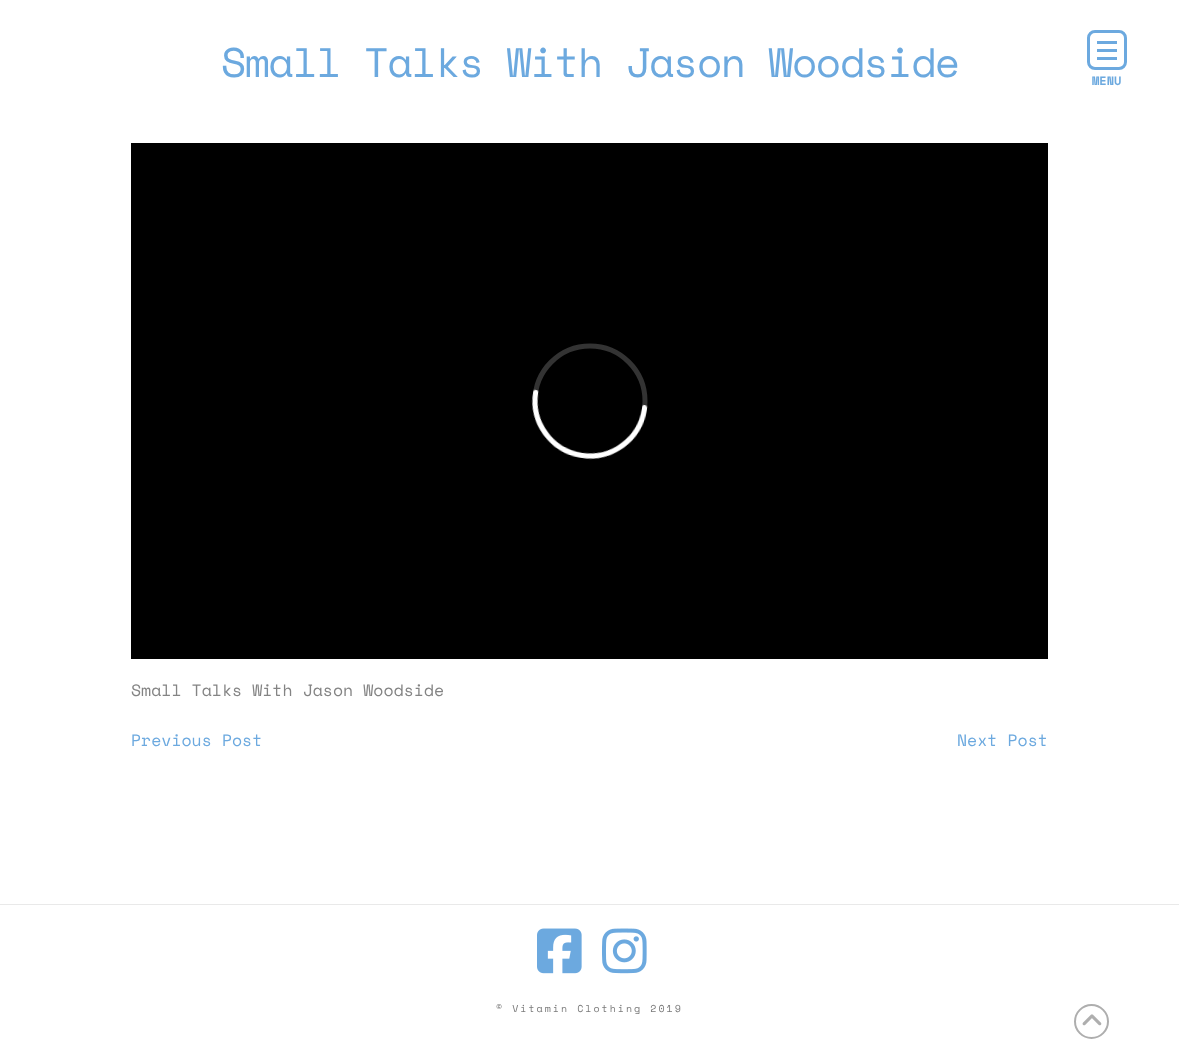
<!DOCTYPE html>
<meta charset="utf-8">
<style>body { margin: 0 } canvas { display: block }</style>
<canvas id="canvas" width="1179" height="1059"></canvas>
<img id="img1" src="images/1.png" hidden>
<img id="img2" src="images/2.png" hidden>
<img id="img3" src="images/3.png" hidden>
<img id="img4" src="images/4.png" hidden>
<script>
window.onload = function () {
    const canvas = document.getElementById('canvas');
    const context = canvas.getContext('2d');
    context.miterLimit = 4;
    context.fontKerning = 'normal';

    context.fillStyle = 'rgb(255, 255, 255)';
    context.fillRect(0, 0, 1179, 1059);
    context.drawImage(document.getElementById('img1'), 131, 143, 917, 516);
    context.fillStyle = 'rgb(233, 233, 233)';
    context.fillRect(0, 904, 1179, 1);
    context.drawImage(document.getElementById('img2'), 537, 928, 45, 46);
    context.drawImage(document.getElementById('img3'), 602, 928, 45, 46);
    context.beginPath();
    context.arc(1091.5, 1021.5, 16.5, 0, 2 * Math.PI);
    context.strokeStyle = 'rgb(174, 174, 174)';
    context.lineWidth = 2;
    context.stroke();
    context.drawImage(document.getElementById('img4'), 1082, 1014, 20, 12);
    context.fillStyle = 'rgb(108, 169, 223)';
    context.fillRect(1097, 41, 20, 3);
    context.fillRect(1097, 57, 20, 3);
    context.beginPath();
    context.roundRect(1088.5, 31.5, 37, 37, 6.5);
    context.strokeStyle = 'rgb(108, 169, 223)';
    context.lineWidth = 3;
    context.stroke();
    context.fillRect(1097, 49, 20, 3);
    context.letterSpacing = '-1.45px';
    context.font = '41.25px Space Mono';
    context.fillText('Small Talks With Jason Woodside', 221, 77);
    context.letterSpacing = '0px';
    context.font = '16.5px Space Mono';
    context.fillStyle = 'rgb(132, 132, 132)';
    context.fillText('Small Talks With Jason Woodside', 131, 696);
    context.fillStyle = 'rgb(108, 169, 223)';
    context.fillText('Previous Post', 131, 746);
    context.fillText('Next Post', 957, 746);
    context.letterSpacing = '2px';
    context.font = '10px Space Mono';
    context.fillStyle = 'rgb(122, 122, 122)';
    context.fillText('© Vitamin Clothing 2019', 496, 1012);
    context.letterSpacing = '0px';
    context.font = 'bold 12px Space Mono';
    context.fillStyle = 'rgb(108, 169, 223)';
    context.fillText('MENU', 1092, 85);
};
</script>
